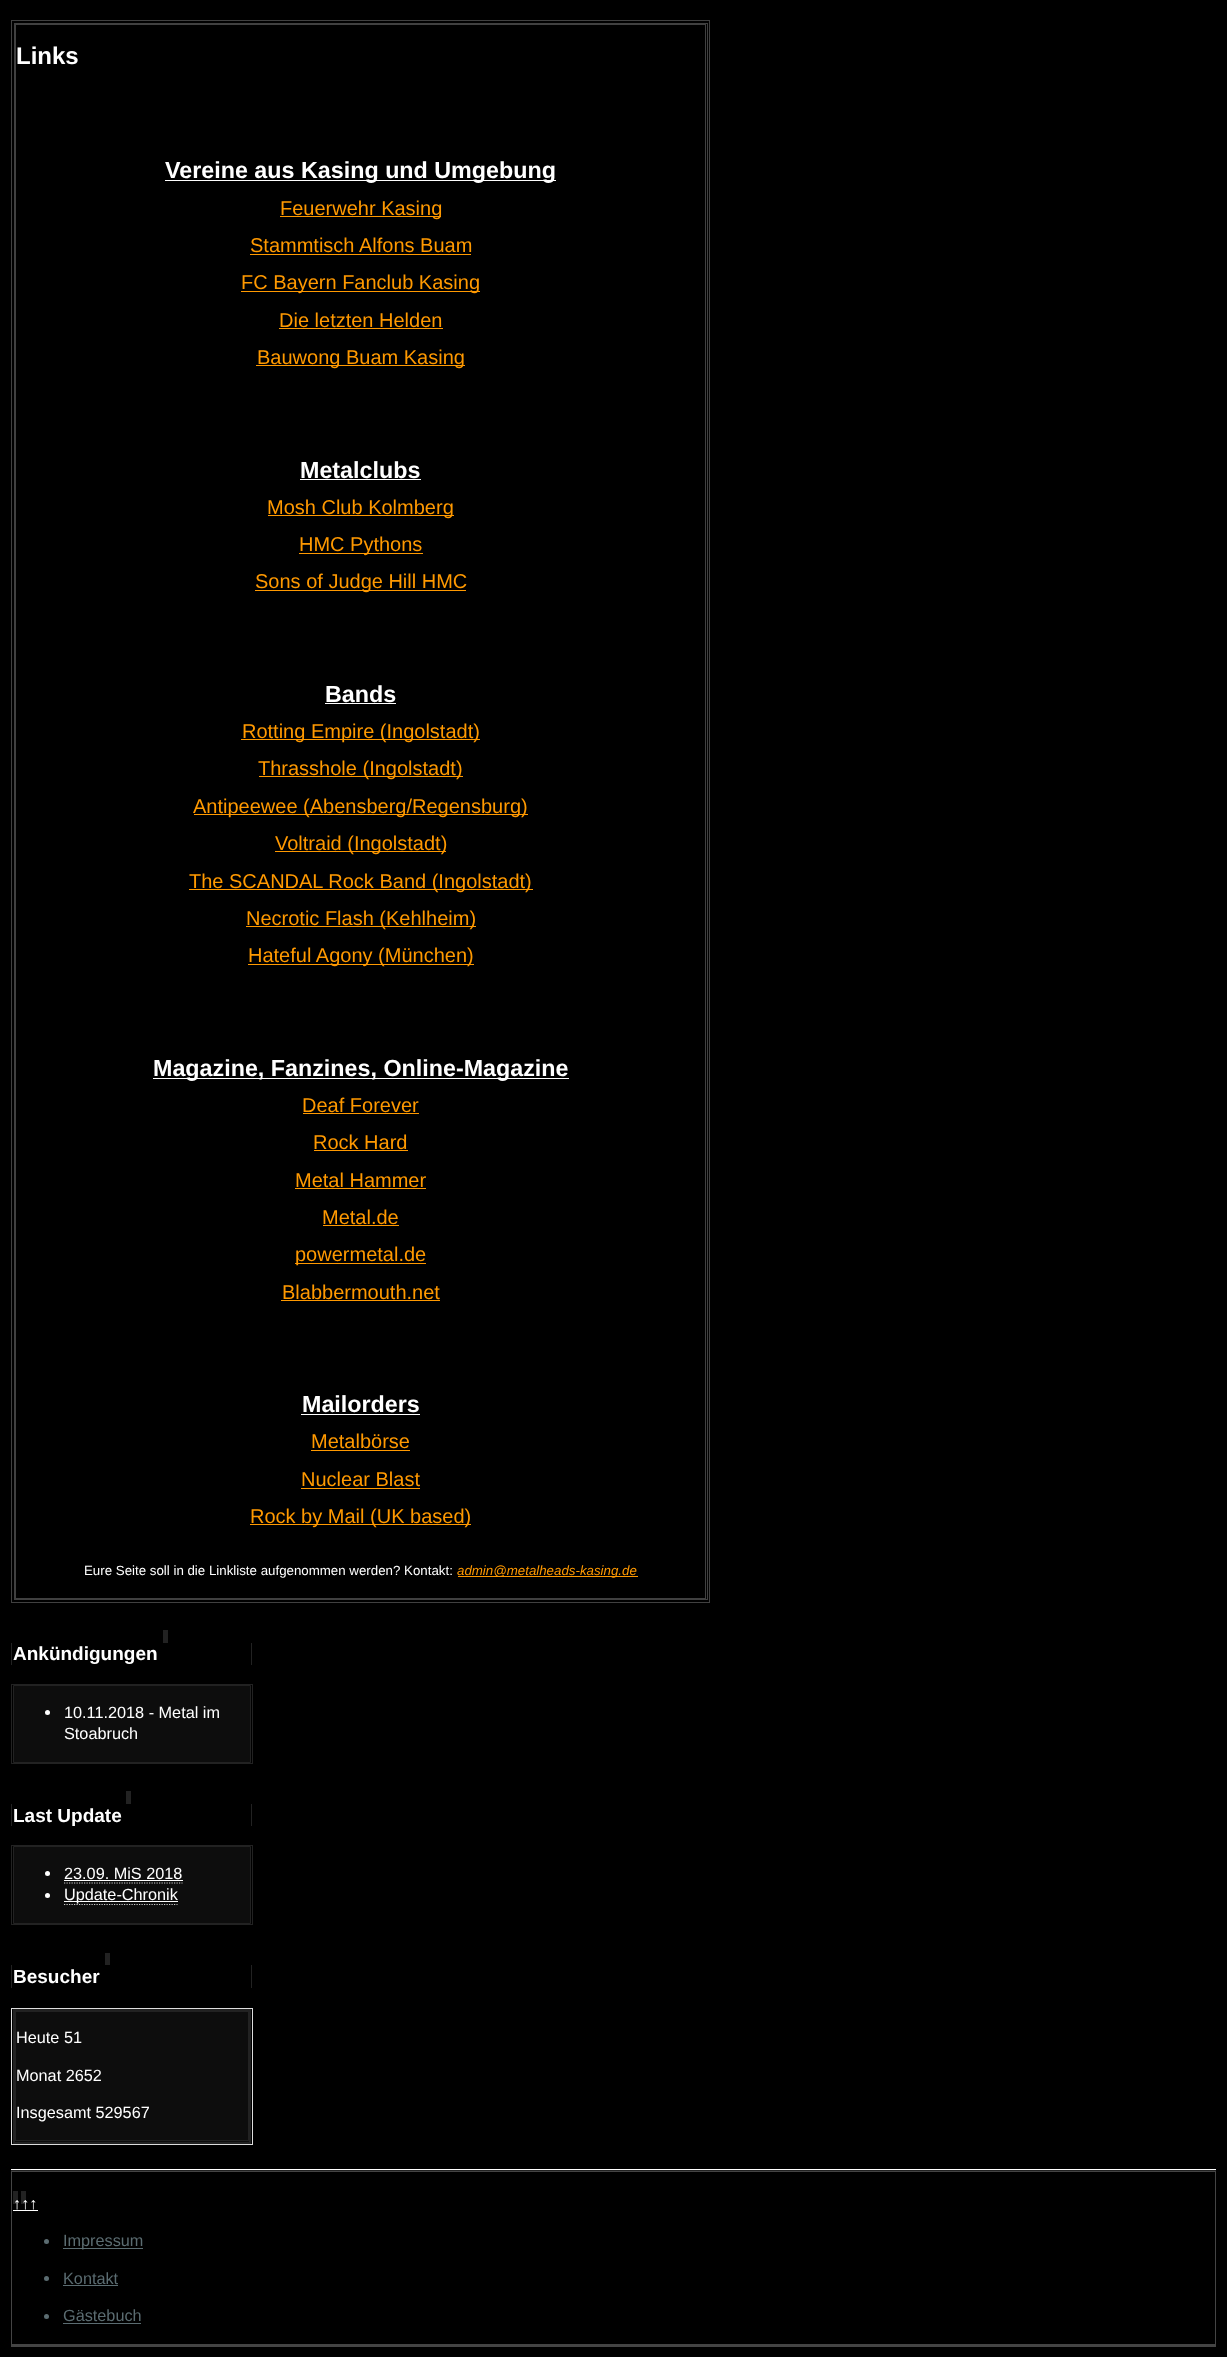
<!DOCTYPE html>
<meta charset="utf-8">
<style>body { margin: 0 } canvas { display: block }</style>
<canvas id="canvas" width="1227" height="2357"></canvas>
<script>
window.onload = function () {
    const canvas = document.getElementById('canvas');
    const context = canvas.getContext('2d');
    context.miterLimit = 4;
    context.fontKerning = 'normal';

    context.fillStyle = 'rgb(0, 0, 0)';
    context.fillRect(0, 0, 1227, 2357);
    context.strokeStyle = 'rgb(64, 64, 64)';
    context.strokeRect(11.5, 20.5, 698, 1582);
    context.strokeRect(14.5, 23.5, 693, 1576);
    context.strokeRect(15.5, 24.5, 690, 1574);
    context.fillStyle = 'rgb(255, 255, 255)';
    context.fillRect(165, 180, 391, 1);
    context.fillStyle = 'rgb(255, 153, 0)';
    context.fillRect(280, 216, 161, 1);
    context.fillRect(250, 254, 221, 1);
    context.fillRect(241, 291, 239, 1);
    context.fillRect(279, 328, 164, 1);
    context.fillRect(256, 365, 209, 1);
    context.fillStyle = 'rgb(255, 255, 255)';
    context.fillRect(300, 479, 121, 1);
    context.fillStyle = 'rgb(255, 153, 0)';
    context.fillRect(268, 515, 186, 1);
    context.fillRect(299, 553, 124, 1);
    context.fillRect(255, 590, 211, 1);
    context.fillStyle = 'rgb(255, 255, 255)';
    context.fillRect(325, 703, 71, 1);
    context.fillStyle = 'rgb(255, 153, 0)';
    context.fillRect(241, 739, 239, 1);
    context.fillRect(259, 776, 204, 1);
    context.fillRect(194, 814, 334, 1);
    context.fillRect(275, 851, 171, 1);
    context.fillRect(189, 889, 344, 1);
    context.fillRect(246, 926, 230, 1);
    context.fillRect(248, 964, 226, 1);
    context.fillStyle = 'rgb(255, 255, 255)';
    context.fillRect(153, 1078, 416, 1);
    context.fillStyle = 'rgb(255, 153, 0)';
    context.fillRect(303, 1113, 116, 1);
    context.fillRect(314, 1150, 94, 1);
    context.fillRect(295, 1188, 131, 1);
    context.fillRect(323, 1225, 76, 1);
    context.fillRect(295, 1263, 131, 1);
    context.fillRect(281, 1300, 159, 1);
    context.fillStyle = 'rgb(255, 255, 255)';
    context.fillRect(301, 1414, 119, 1);
    context.fillStyle = 'rgb(255, 153, 0)';
    context.fillRect(311, 1450, 99, 1);
    context.fillRect(301, 1488, 119, 1);
    context.fillRect(250, 1524, 221, 1);
    context.fillRect(458, 1576, 180, 1);
    context.fillStyle = 'rgb(34, 34, 34)';
    context.fillRect(251, 1643, 1, 22);
    context.fillRect(11, 1643, 1, 22);
    context.fillRect(163, 1630, 5, 13);
    context.strokeStyle = 'rgb(34, 34, 34)';
    context.strokeRect(11.5, 1684.5, 241, 79);
    context.fillStyle = 'rgb(13, 13, 13)';
    context.beginPath();
    context.rect(13.5, 1685.5, 237, 77);
    context.fill();
    context.stroke();
    context.fillStyle = 'rgb(255, 255, 255)';
    context.beginPath();
    context.arc(47.5, 1712.5, 2.5, 0, 2 * Math.PI);
    context.fill();
    context.fillStyle = 'rgb(34, 34, 34)';
    context.fillRect(251, 1804, 1, 22);
    context.fillRect(11, 1804, 1, 22);
    context.fillRect(126, 1791, 5, 13);
    context.strokeRect(11.5, 1845.5, 241, 79);
    context.fillStyle = 'rgb(13, 13, 13)';
    context.beginPath();
    context.rect(13.5, 1846.5, 237, 77);
    context.fill();
    context.stroke();
    context.fillStyle = 'rgb(255, 255, 255)';
    context.beginPath();
    context.arc(47.5, 1873.5, 2.5, 0, 2 * Math.PI);
    context.fill();
    context.beginPath();
    context.moveTo(64, 1883);
    context.lineTo(182.5, 1883);
    context.strokeStyle = 'rgb(204, 204, 204)';
    context.lineWidth = 1.2;
    context.setLineDash([1.25, 1.25]);
    context.stroke();
    context.fillRect(64, 1880, 119, 1);
    context.beginPath();
    context.arc(47.5, 1895.5, 2.5, 0, 2 * Math.PI);
    context.fill();
    context.beginPath();
    context.moveTo(64, 1904.5);
    context.lineTo(177.5, 1904.5);
    context.stroke();
    context.fillRect(64, 1901, 114, 1);
    context.fillStyle = 'rgb(34, 34, 34)';
    context.fillRect(251, 1965, 1, 23);
    context.fillRect(11, 1965, 1, 23);
    context.fillRect(105, 1953, 5, 12);
    context.strokeStyle = 'rgb(221, 221, 221)';
    context.lineWidth = 1;
    context.setLineDash([]);
    context.strokeRect(11.5, 2008.5, 241, 136);
    context.strokeStyle = 'rgb(34, 34, 34)';
    context.strokeRect(13.5, 2009.5, 237, 134);
    context.fillStyle = 'rgb(13, 13, 13)';
    context.fillRect(15, 2012, 234, 130);
    context.strokeRect(14.5, 2010.5, 235, 132);
    context.strokeRect(15.5, 2011.5, 233, 129);
    context.fillStyle = 'rgb(255, 255, 255)';
    context.fillRect(11, 2169, 1205, 1);
    context.fillStyle = 'rgb(34, 34, 34)';
    context.fillRect(11, 2170, 1205, 1);
    context.fillStyle = 'rgb(68, 68, 68)';
    context.fillRect(11, 2171, 1205, 1);
    context.fillRect(1215, 2171, 1, 175);
    context.fillRect(11, 2344, 1205, 3);
    context.fillRect(11, 2171, 1, 175);
    context.fillStyle = 'rgb(34, 34, 34)';
    context.fillRect(13, 2191, 5, 13);
    context.fillRect(21, 2191, 5, 13);
    context.fillStyle = 'rgb(255, 255, 255)';
    context.fillRect(13, 2210, 25, 1);
    context.fillStyle = 'rgb(91, 108, 113)';
    context.beginPath();
    context.arc(46.5, 2241.5, 2.5, 0, 2 * Math.PI);
    context.fill();
    context.fillRect(63, 2248, 80, 1);
    context.beginPath();
    context.arc(46.5, 2278.5, 2.5, 0, 2 * Math.PI);
    context.fill();
    context.fillRect(63, 2285, 55, 1);
    context.beginPath();
    context.arc(46.5, 2316.5, 2.5, 0, 2 * Math.PI);
    context.fill();
    context.fillRect(63, 2323, 78, 1);
    context.font = 'bold 24px Liberation Sans';
    context.fillStyle = 'rgb(255, 255, 255)';
    context.fillText('Links', 16, 64);
    context.font = 'bold 23.3px Liberation Sans';
    context.fillText('Vereine aus Kasing und Umgebung', 165, 178);
    context.font = '20px Liberation Sans';
    context.fillStyle = 'rgb(255, 153, 0)';
    context.fillText('Feuerwehr Kasing', 280, 215);
    context.fillText('Stammtisch Alfons Buam', 250, 252);
    context.fillText('FC Bayern Fanclub Kasing', 241, 289);
    context.fillText('Die letzten Helden', 279, 327);
    context.fillText('Bauwong Buam Kasing', 257, 364);
    context.font = 'bold 23.3px Liberation Sans';
    context.fillStyle = 'rgb(255, 255, 255)';
    context.fillText('Metalclubs', 300, 478);
    context.font = '20px Liberation Sans';
    context.fillStyle = 'rgb(255, 153, 0)';
    context.fillText('Mosh Club Kolmberg', 267, 514);
    context.fillText('HMC Pythons', 299, 551);
    context.fillText('Sons of Judge Hill HMC', 255, 588);
    context.font = 'bold 23.3px Liberation Sans';
    context.fillStyle = 'rgb(255, 255, 255)';
    context.fillText('Bands', 325, 702);
    context.font = '20px Liberation Sans';
    context.fillStyle = 'rgb(255, 153, 0)';
    context.fillText('Rotting Empire (Ingolstadt)', 242, 738);
    context.fillText('Thrasshole (Ingolstadt)', 258, 775);
    context.fillText('Antipeewee (Abensberg/Regensburg)', 193, 813);
    context.fillText('Voltraid (Ingolstadt)', 275, 850);
    context.fillText('The SCANDAL Rock Band (Ingolstadt)', 189, 888);
    context.fillText('Necrotic Flash (Kehlheim)', 246, 925);
    context.fillText('Hateful Agony (München)', 248, 962);
    context.font = 'bold 23.3px Liberation Sans';
    context.fillStyle = 'rgb(255, 255, 255)';
    context.fillText('Magazine, Fanzines, Online-Magazine', 153, 1076);
    context.font = '20px Liberation Sans';
    context.fillStyle = 'rgb(255, 153, 0)';
    context.fillText('Deaf Forever', 302, 1112);
    context.fillText('Rock Hard', 313, 1149);
    context.fillText('Metal Hammer', 295, 1187);
    context.fillText('Metal.de', 322, 1224);
    context.fillText('powermetal.de', 295, 1261);
    context.fillText('Blabbermouth.net', 282, 1299);
    context.font = 'bold 23.3px Liberation Sans';
    context.fillStyle = 'rgb(255, 255, 255)';
    context.fillText('Mailorders', 302, 1412);
    context.font = '20px Liberation Sans';
    context.fillStyle = 'rgb(255, 153, 0)';
    context.fillText('Metalbörse', 311, 1448);
    context.fillText('Nuclear Blast', 301, 1486);
    context.fillText('Rock by Mail (UK based)', 250, 1523);
    context.font = '13.3px Liberation Sans';
    context.fillStyle = 'rgb(255, 255, 255)';
    context.fillText('Eure Seite soll in die Linkliste aufgenommen werden? Kontakt:', 84, 1575);
    context.font = 'italic 13.3px Liberation Sans';
    context.fillStyle = 'rgb(255, 153, 0)';
    context.fillText('admin@metalheads-kasing.de', 457, 1575);
    context.font = 'bold 19px Liberation Sans';
    context.fillStyle = 'rgb(255, 255, 255)';
    context.fillText('Ankündigungen', 13, 1660);
    context.font = '16.25px Liberation Sans';
    context.fillText('10.11.2018 - Metal im', 64, 1718);
    context.fillText('Stoabruch', 64, 1739);
    context.font = 'bold 19px Liberation Sans';
    context.fillText('Last Update', 13, 1822);
    context.font = '16.25px Liberation Sans';
    context.fillText('23.09. MiS 2018', 64, 1879);
    context.fillText('Update-Chronik', 64, 1900);
    context.font = 'bold 19px Liberation Sans';
    context.fillText('Besucher', 13, 1983);
    context.font = '16.25px Liberation Sans';
    context.fillText('Heute 51', 16, 2043);
    context.fillText('Monat 2652', 16, 2081);
    context.fillText('Insgesamt 529567', 16, 2118);
    context.fillText('↑↑↑', 13, 2209);
    context.fillStyle = 'rgb(91, 108, 113)';
    context.fillText('Impressum', 63, 2246);
    context.fillText('Kontakt', 63, 2284);
    context.fillText('Gästebuch', 63, 2321);
};
</script>
